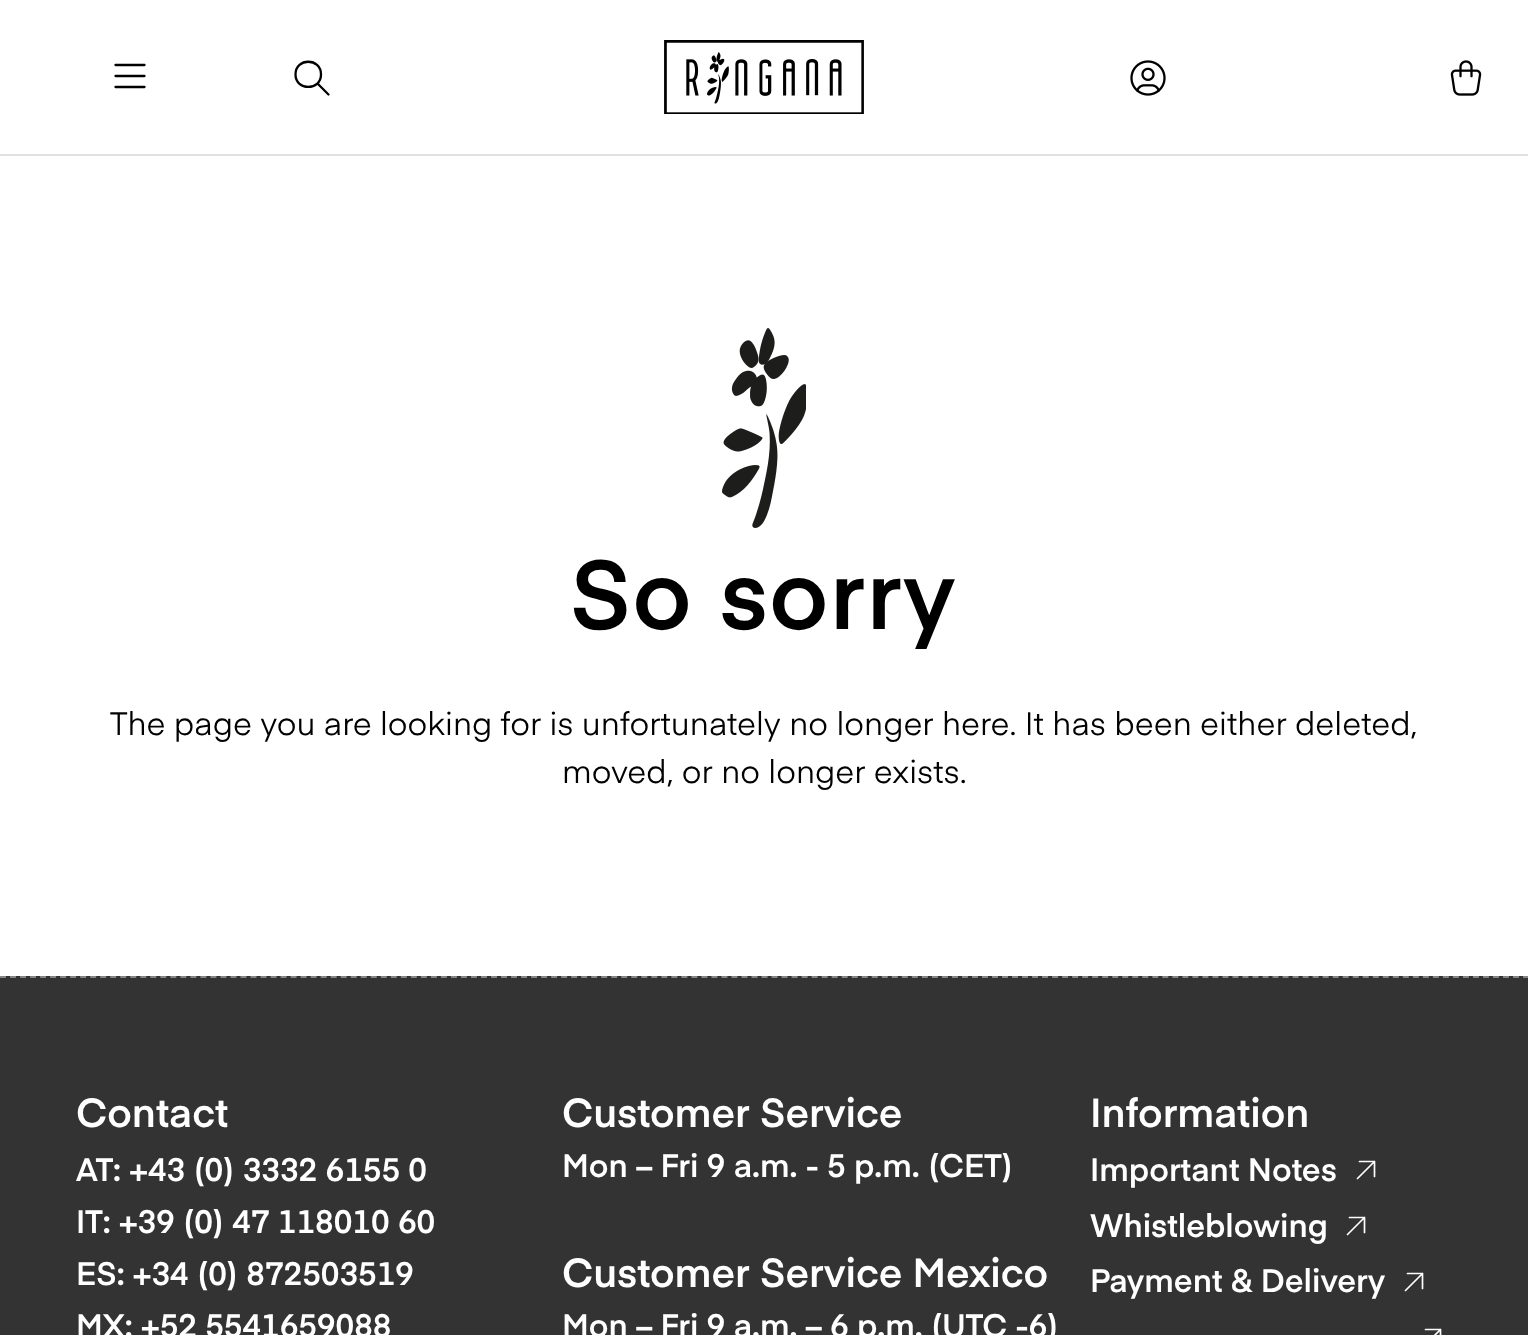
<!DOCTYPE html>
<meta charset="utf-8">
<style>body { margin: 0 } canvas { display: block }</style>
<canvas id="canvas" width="1528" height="1335"></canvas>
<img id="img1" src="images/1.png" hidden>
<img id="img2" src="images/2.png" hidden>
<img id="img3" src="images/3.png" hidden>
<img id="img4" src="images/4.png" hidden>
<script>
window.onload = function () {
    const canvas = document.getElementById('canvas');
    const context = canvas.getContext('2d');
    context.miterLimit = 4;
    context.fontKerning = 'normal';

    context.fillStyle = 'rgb(255, 255, 255)';
    context.fillRect(0, 0, 1528, 1335);
    context.fillStyle = 'rgb(224, 224, 224)';
    context.fillRect(0, 154, 1528, 2);
    context.beginPath();
    context.moveTo(115.5, 65);
    context.lineTo(144.5, 65);
    context.moveTo(115.5, 76);
    context.lineTo(144.5, 76);
    context.moveTo(115.5, 87);
    context.lineTo(144.5, 87);
    context.strokeStyle = 'rgb(0, 0, 0)';
    context.lineWidth = 2.3;
    context.lineCap = 'round';
    context.lineJoin = 'round';
    context.stroke();
    context.beginPath();
    context.moveTo(295.5, 74.5);
    context.bezierCurveTo(295.5, 91, 321, 91, 321, 74.5);
    context.bezierCurveTo(321, 57.5, 295.5, 57.5, 295.5, 74.5);
    context.moveTo(328.5, 94.5);
    context.lineTo(317.5, 83.5);
    context.stroke();
    context.drawImage(document.getElementById('img1'), 664, 40, 200, 74);
    context.drawImage(document.getElementById('img2'), 1130, 60, 36, 36);
    context.drawImage(document.getElementById('img3'), 1450, 60, 32, 36);
    context.drawImage(document.getElementById('img4'), 722, 328, 84, 200);
    context.fillStyle = 'rgb(51, 51, 51)';
    context.fillRect(0, 976, 1528, 359);
    context.beginPath();
    context.moveTo(0, 977);
    context.lineTo(1528, 977);
    context.strokeStyle = 'rgb(133, 133, 133)';
    context.lineWidth = 2;
    context.lineCap = 'butt';
    context.lineJoin = 'miter';
    context.setLineDash([6, 4.02]);
    context.stroke();
    context.beginPath();
    context.moveTo(1374.5, 1161.5);
    context.lineTo(1357.5, 1178.5);
    context.moveTo(1359.5, 1161.5);
    context.lineTo(1374.5, 1161.5);
    context.lineTo(1374.5, 1176.5);
    context.strokeStyle = 'rgb(255, 255, 255)';
    context.lineWidth = 1.7;
    context.lineCap = 'round';
    context.lineJoin = 'round';
    context.setLineDash([]);
    context.stroke();
    context.beginPath();
    context.moveTo(1364.5, 1217.5);
    context.lineTo(1347.5, 1234.5);
    context.moveTo(1349.5, 1217.5);
    context.lineTo(1364.5, 1217.5);
    context.lineTo(1364.5, 1232.5);
    context.stroke();
    context.beginPath();
    context.moveTo(1422.5, 1273.5);
    context.lineTo(1405.5, 1290.5);
    context.moveTo(1407.5, 1273.5);
    context.lineTo(1422.5, 1273.5);
    context.lineTo(1422.5, 1288.5);
    context.moveTo(1440.5, 1329.5);
    context.lineTo(1423.5, 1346.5);
    context.moveTo(1425.5, 1329.5);
    context.lineTo(1440.5, 1329.5);
    context.lineTo(1440.5, 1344.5);
    context.stroke();
    context.letterSpacing = '1.5px';
    context.font = '600 96px "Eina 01"';
    context.fillStyle = 'rgb(0, 0, 0)';
    context.fillText('So sorry', 570, 629);
    context.letterSpacing = '0px';
    context.font = '32px "Eina 01"';
    context.fillText('The page you are looking for is unfortunately no longer here. It has been either deleted,', 110, 735);
    context.fillText('moved, or no longer exists.', 562, 783);
    context.font = '600 40px "Eina 01"';
    context.fillStyle = 'rgb(255, 255, 255)';
    context.fillText('Contact', 76, 1127);
    context.font = '600 32px "Eina 01"';
    context.fillText('AT: +43 (0) 3332 6155 0', 76, 1181);
    context.fillText('IT: +39 (0) 47 118010 60', 76, 1233);
    context.fillText('ES: +34 (0) 872503519', 76, 1285);
    context.fillText('MX: +52 5541659088', 76, 1337);
    context.font = '600 40px "Eina 01"';
    context.fillText('Customer Service', 562, 1127);
    context.font = '600 32px "Eina 01"';
    context.fillText('Mon – Fri 9 a.m. - 5 p.m. (CET)', 562, 1177);
    context.font = '600 40px "Eina 01"';
    context.fillText('Customer Service Mexico', 562, 1287);
    context.font = '600 32px "Eina 01"';
    context.fillText('Mon – Fri 9 a.m. – 6 p.m. (UTC -6)', 562, 1337);
    context.font = '600 40px "Eina 01"';
    context.fillText('Information', 1090, 1127);
    context.font = '600 32px "Eina 01"';
    context.fillText('Important Notes', 1090, 1181);
    context.fillText('Whistleblowing', 1090, 1237);
    context.fillText('Payment & Delivery', 1090, 1292);
};
</script>
